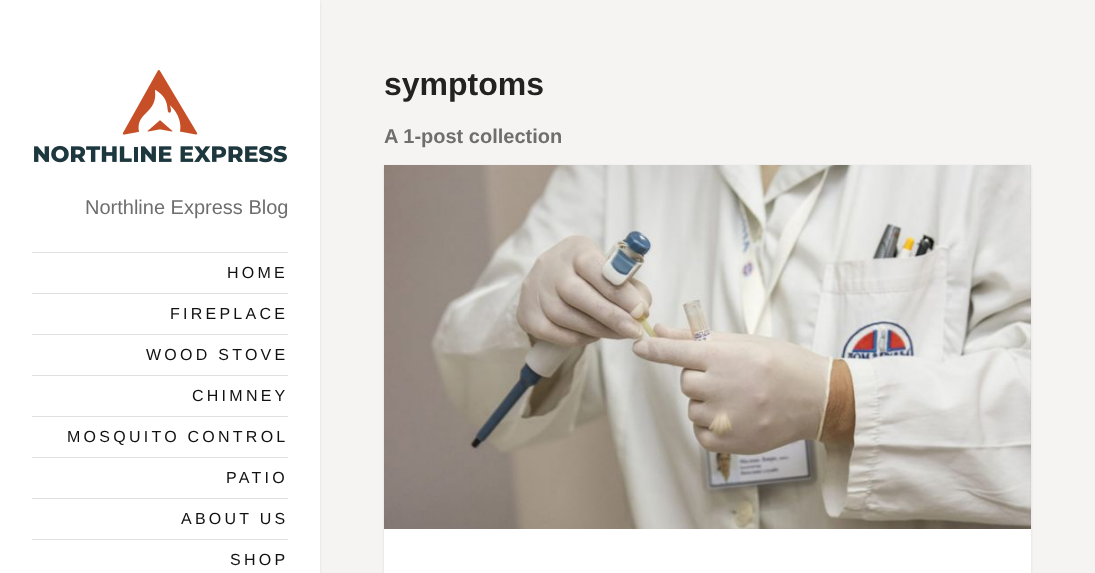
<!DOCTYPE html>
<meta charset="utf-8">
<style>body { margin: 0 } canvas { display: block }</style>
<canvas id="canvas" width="1095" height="573"></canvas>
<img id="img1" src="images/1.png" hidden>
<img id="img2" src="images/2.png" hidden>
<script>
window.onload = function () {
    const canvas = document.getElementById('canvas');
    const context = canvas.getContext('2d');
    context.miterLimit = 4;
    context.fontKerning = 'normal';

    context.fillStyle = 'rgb(245, 244, 242)';
    context.fillRect(0, 0, 1095, 573);
    context.fillStyle = 'rgba(99, 99, 99, 0.15)';
    context.filter = 'blur(1.5px)';
    context.beginPath();
    context.rect(384, 166, 647, 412);
    context.fill();
    context.filter = 'none';
    context.fillStyle = 'rgb(255, 255, 255)';
    context.fillRect(384, 529, 647, 44);
    context.drawImage(document.getElementById('img1'), 384, 165, 647, 364);
    context.fillStyle = 'rgba(99, 99, 99, 0.15)';
    context.filter = 'blur(1.5px)';
    context.beginPath();
    context.rect(0, 1, 320, 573);
    context.fill();
    context.filter = 'none';
    context.fillStyle = 'rgb(255, 255, 255)';
    context.fillRect(0, 0, 320, 573);
    context.drawImage(document.getElementById('img2'), 34, 70, 253, 93);
    context.fillStyle = 'rgb(223, 223, 223)';
    context.fillRect(32, 252, 256, 1);
    context.fillRect(32, 293, 256, 1);
    context.fillRect(32, 334, 256, 1);
    context.fillRect(32, 375, 256, 1);
    context.fillRect(32, 416, 256, 1);
    context.fillRect(32, 457, 256, 1);
    context.fillRect(32, 498, 256, 1);
    context.fillRect(32, 539, 256, 1);
    context.font = 'bold 32px Liberation Sans';
    context.fillStyle = 'rgb(34, 34, 34)';
    context.fillText('symptoms', 384, 95);
    context.font = 'bold 20px Liberation Sans';
    context.fillStyle = 'rgb(110, 110, 110)';
    context.fillText('A 1-post collection', 384, 143);
    context.font = '20px Liberation Sans';
    context.fillText('Northline Express Blog', 85, 214);
    context.letterSpacing = '3.25px';
    context.font = '16px Liberation Sans';
    context.fillStyle = 'rgb(17, 17, 17)';
    context.fillText('HOME', 227, 278);
    context.fillText('FIREPLACE', 170, 319);
    context.fillText('WOOD STOVE', 146, 360);
    context.fillText('CHIMNEY', 192, 401);
    context.fillText('MOSQUITO CONTROL', 67, 442);
    context.fillText('PATIO', 226, 483);
    context.fillText('ABOUT US', 181, 524);
    context.fillText('SHOP', 230, 565);
};
</script>
